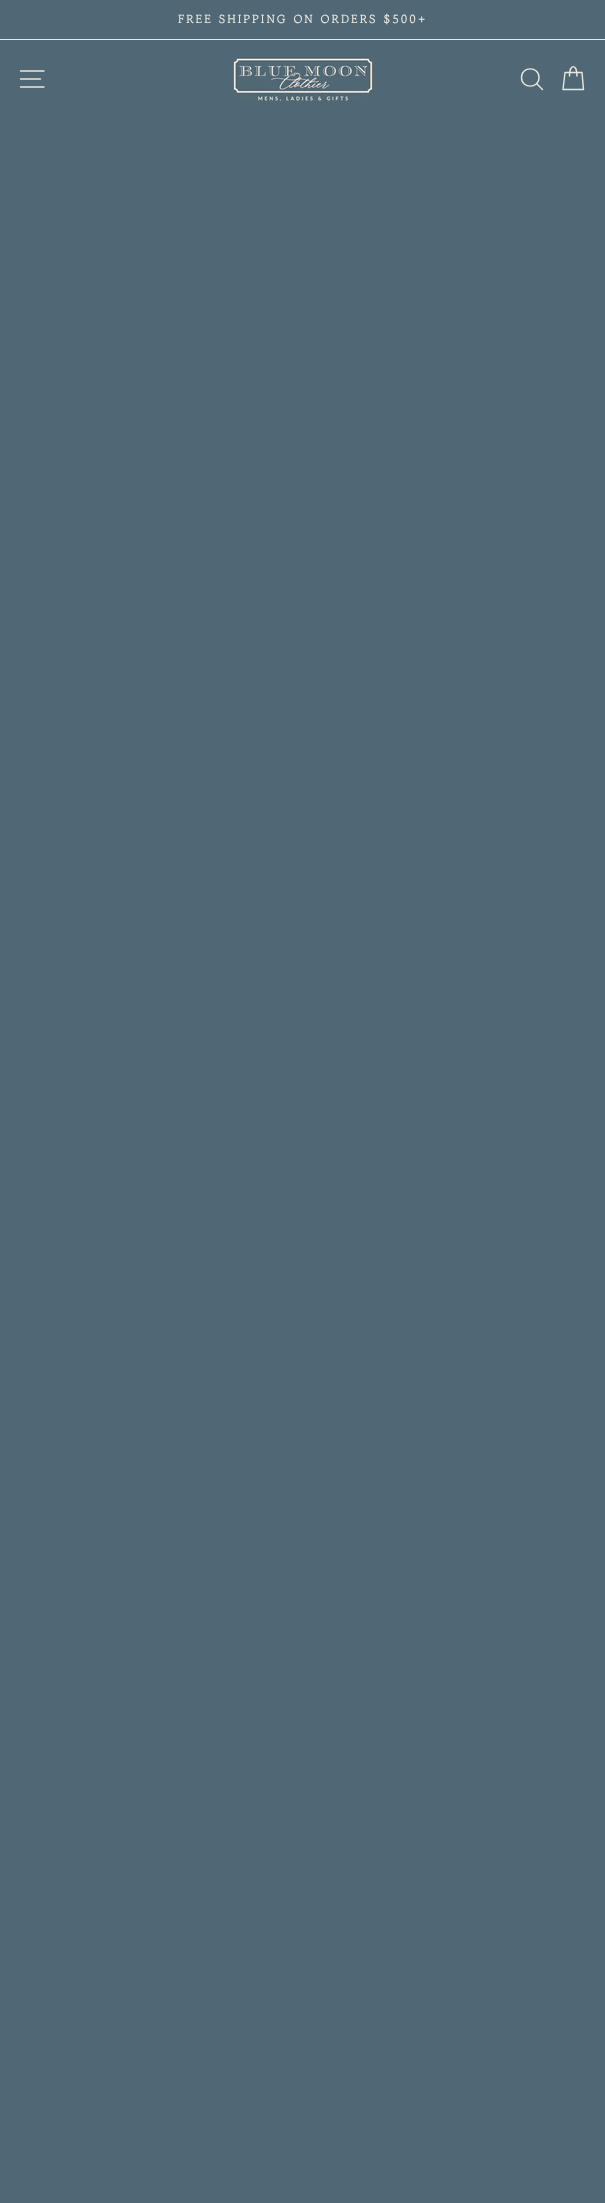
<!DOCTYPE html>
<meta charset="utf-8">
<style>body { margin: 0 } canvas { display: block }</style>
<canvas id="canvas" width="605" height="2203"></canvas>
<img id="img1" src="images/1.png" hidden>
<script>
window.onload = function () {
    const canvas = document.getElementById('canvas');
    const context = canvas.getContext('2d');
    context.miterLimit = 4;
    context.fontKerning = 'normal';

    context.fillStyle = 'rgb(80, 104, 117)';
    context.fillRect(0, 0, 605, 2203);
    context.fillStyle = 'rgb(232, 232, 225)';
    context.fillRect(0, 39, 605, 1);
    context.beginPath();
    context.moveTo(20.5, 71);
    context.lineTo(44, 71);
    context.moveTo(20.5, 79);
    context.lineTo(40.5, 79);
    context.moveTo(20.5, 87);
    context.lineTo(44, 87);
    context.strokeStyle = 'rgb(232, 232, 225)';
    context.lineWidth = 1.4;
    context.lineCap = 'round';
    context.lineJoin = 'round';
    context.stroke();
    context.drawImage(document.getElementById('img1'), 233, 57, 140, 44);
    context.beginPath();
    context.moveTo(539, 77.5);
    context.bezierCurveTo(539, 89, 521.5, 89, 521.5, 77.5);
    context.bezierCurveTo(521.5, 66, 539, 66, 539, 77.5);
    context.closePath();
    context.moveTo(542.5, 89.5);
    context.lineTo(536.5, 83.5);
    context.moveTo(569.5, 76);
    context.bezierCurveTo(569.5, 63.5, 577, 63.5, 577, 76);
    context.stroke();
    context.beginPath();
    context.moveTo(565, 72.5);
    context.lineTo(582, 72.5);
    context.lineTo(583.5, 89.5);
    context.lineTo(563, 89.5);
    context.closePath();
    context.stroke();
    context.letterSpacing = '2.3px';
    context.font = 'bold 11.5px Gowun Batang';
    context.fillText('FREE SHIPPING ON ORDERS $500+', 178, 24);
};
</script>
